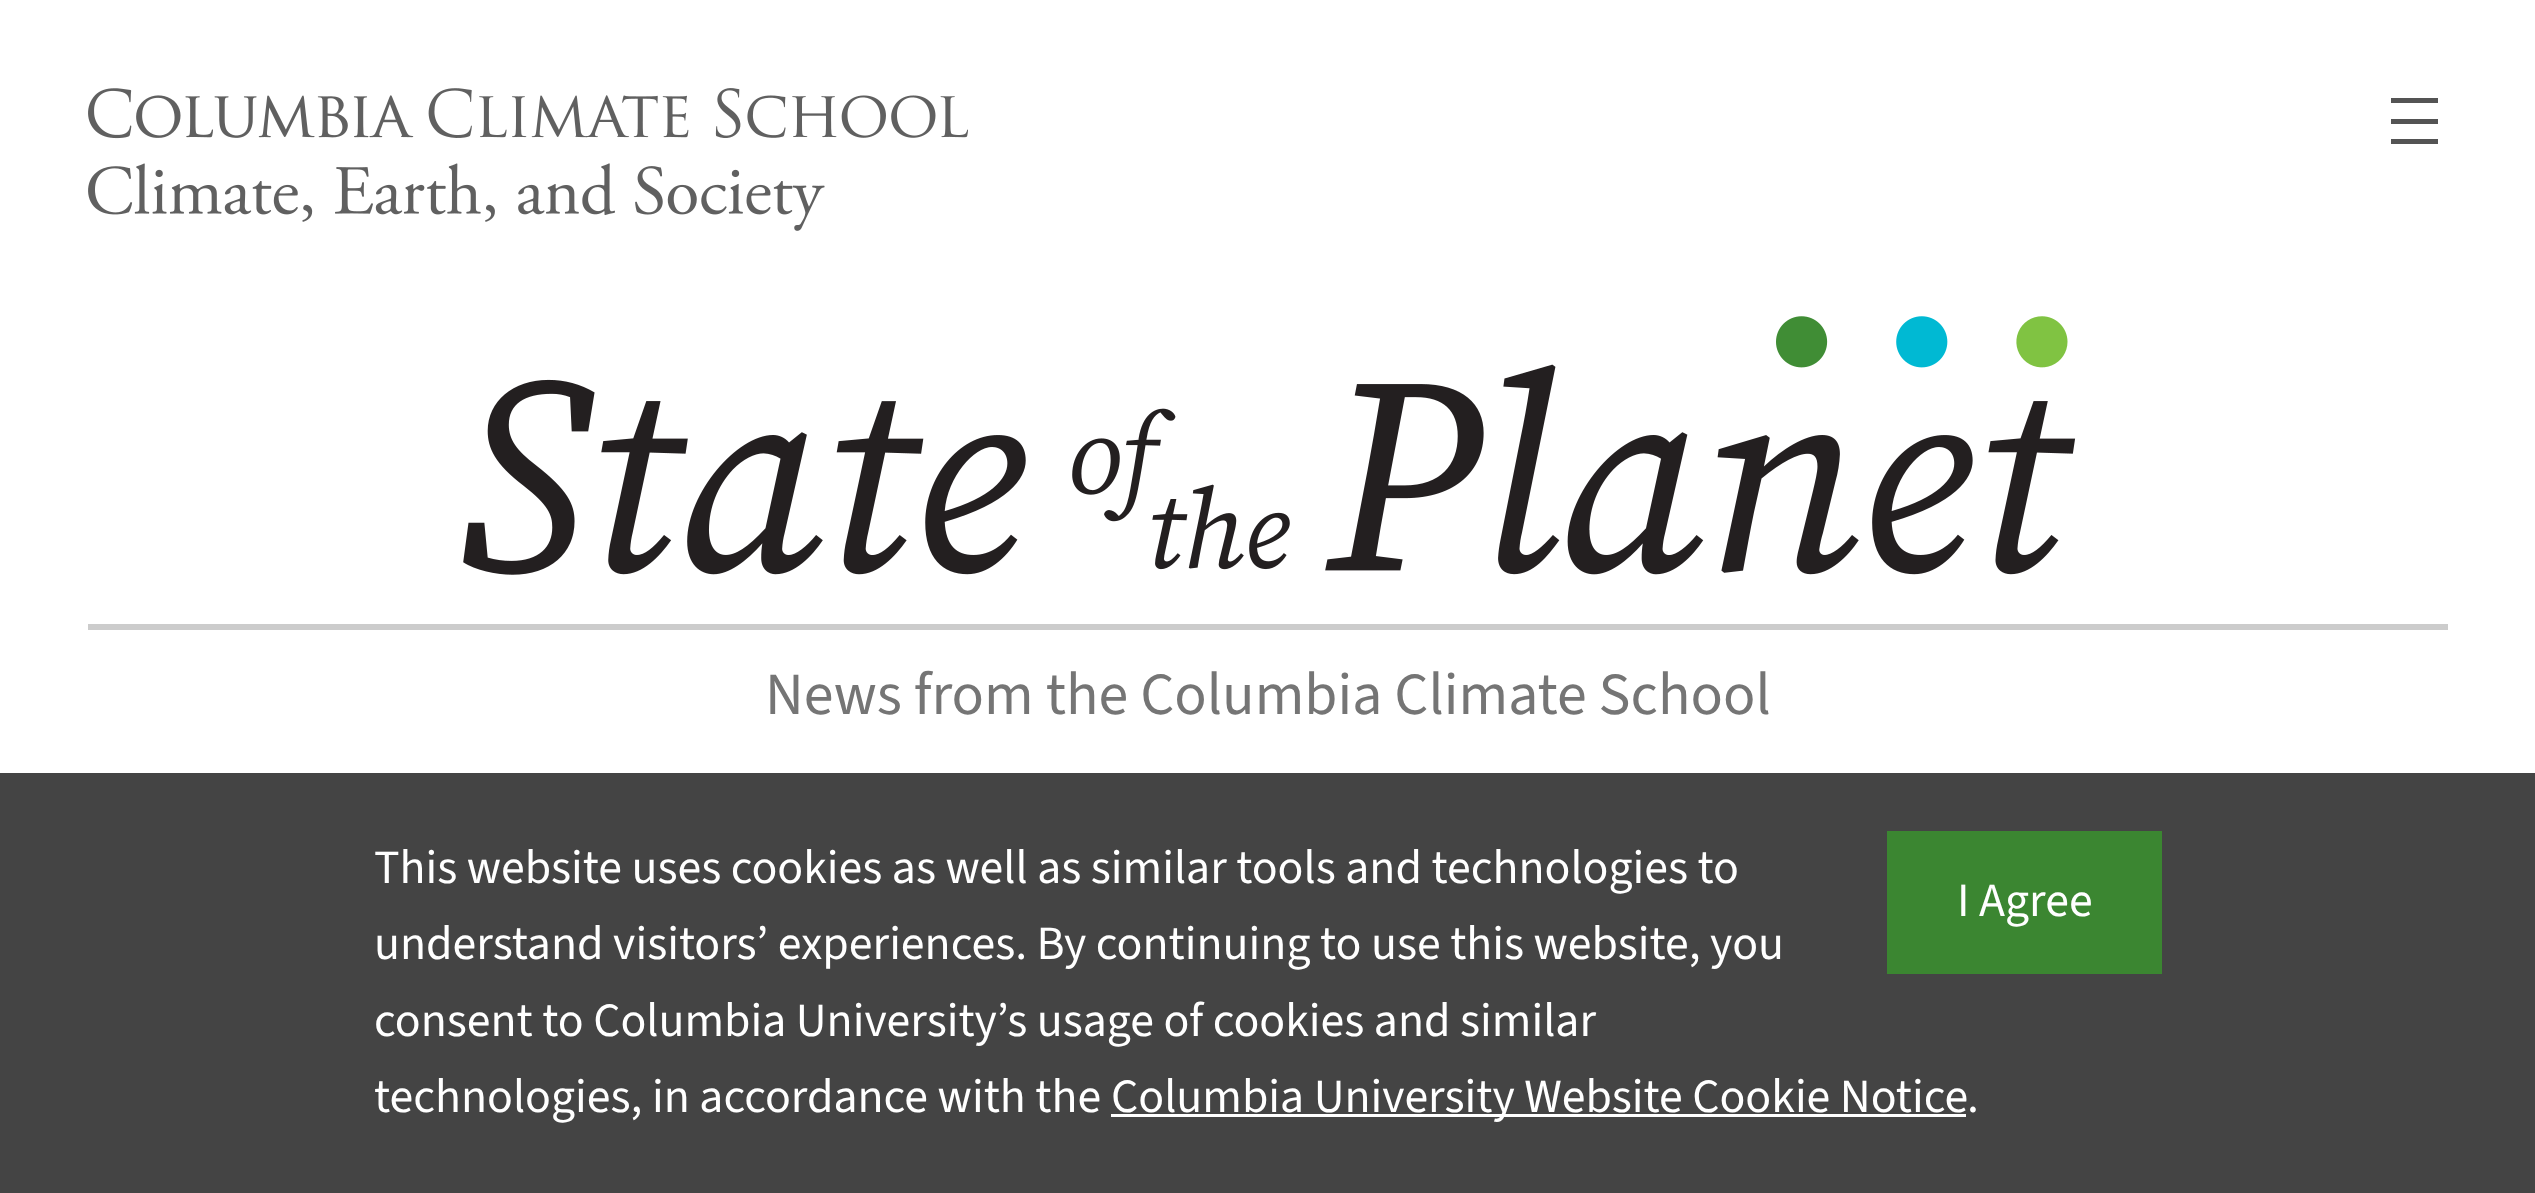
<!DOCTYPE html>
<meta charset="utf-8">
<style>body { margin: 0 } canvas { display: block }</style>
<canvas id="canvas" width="2535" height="1193"></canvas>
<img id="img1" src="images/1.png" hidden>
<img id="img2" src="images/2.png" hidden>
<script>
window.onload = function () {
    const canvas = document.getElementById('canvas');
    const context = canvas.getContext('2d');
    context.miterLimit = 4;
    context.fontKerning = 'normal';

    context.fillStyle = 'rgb(255, 255, 255)';
    context.fillRect(0, 0, 2535, 1193);
    context.drawImage(document.getElementById('img1'), 88, 88, 880, 143);
    context.fillStyle = 'rgb(84, 84, 84)';
    context.fillRect(2391, 98, 47, 5);
    context.fillRect(2391, 119, 47, 5);
    context.fillRect(2391, 139, 47, 5);
    context.drawImage(document.getElementById('img2'), 463, 316, 1613, 259);
    context.fillStyle = 'rgb(204, 204, 204)';
    context.fillRect(88, 624, 2360, 6);
    context.fillStyle = 'rgb(68, 68, 68)';
    context.fillRect(0, 773, 2535, 420);
    context.fillStyle = 'rgb(59, 134, 49)';
    context.fillRect(1887, 831, 275, 143);
    context.fillStyle = 'rgb(255, 255, 255)';
    context.fillRect(1111, 1114, 855, 3);
    context.font = '59.9px "Source Sans 3"';
    context.fillStyle = 'rgb(117, 117, 117)';
    context.fillText('News from the Columbia Climate School', 765, 714);
    context.font = '47.75px "Source Sans 3"';
    context.fillStyle = 'rgb(255, 255, 255)';
    context.fillText('This website uses cookies as well as similar tools and technologies to', 374, 883);
    context.fillText('I Agree', 1957, 916);
    context.fillText('understand visitors’ experiences. By continuing to use this website, you', 374, 959);
    context.fillText('consent to Columbia University’s usage of cookies and similar', 374, 1036);
    context.fillText('technologies, in accordance with the', 374, 1112);
    context.fillText('Columbia University Website Cookie Notice', 1111, 1112);
    context.fillText('.', 1967, 1112);
};
</script>
